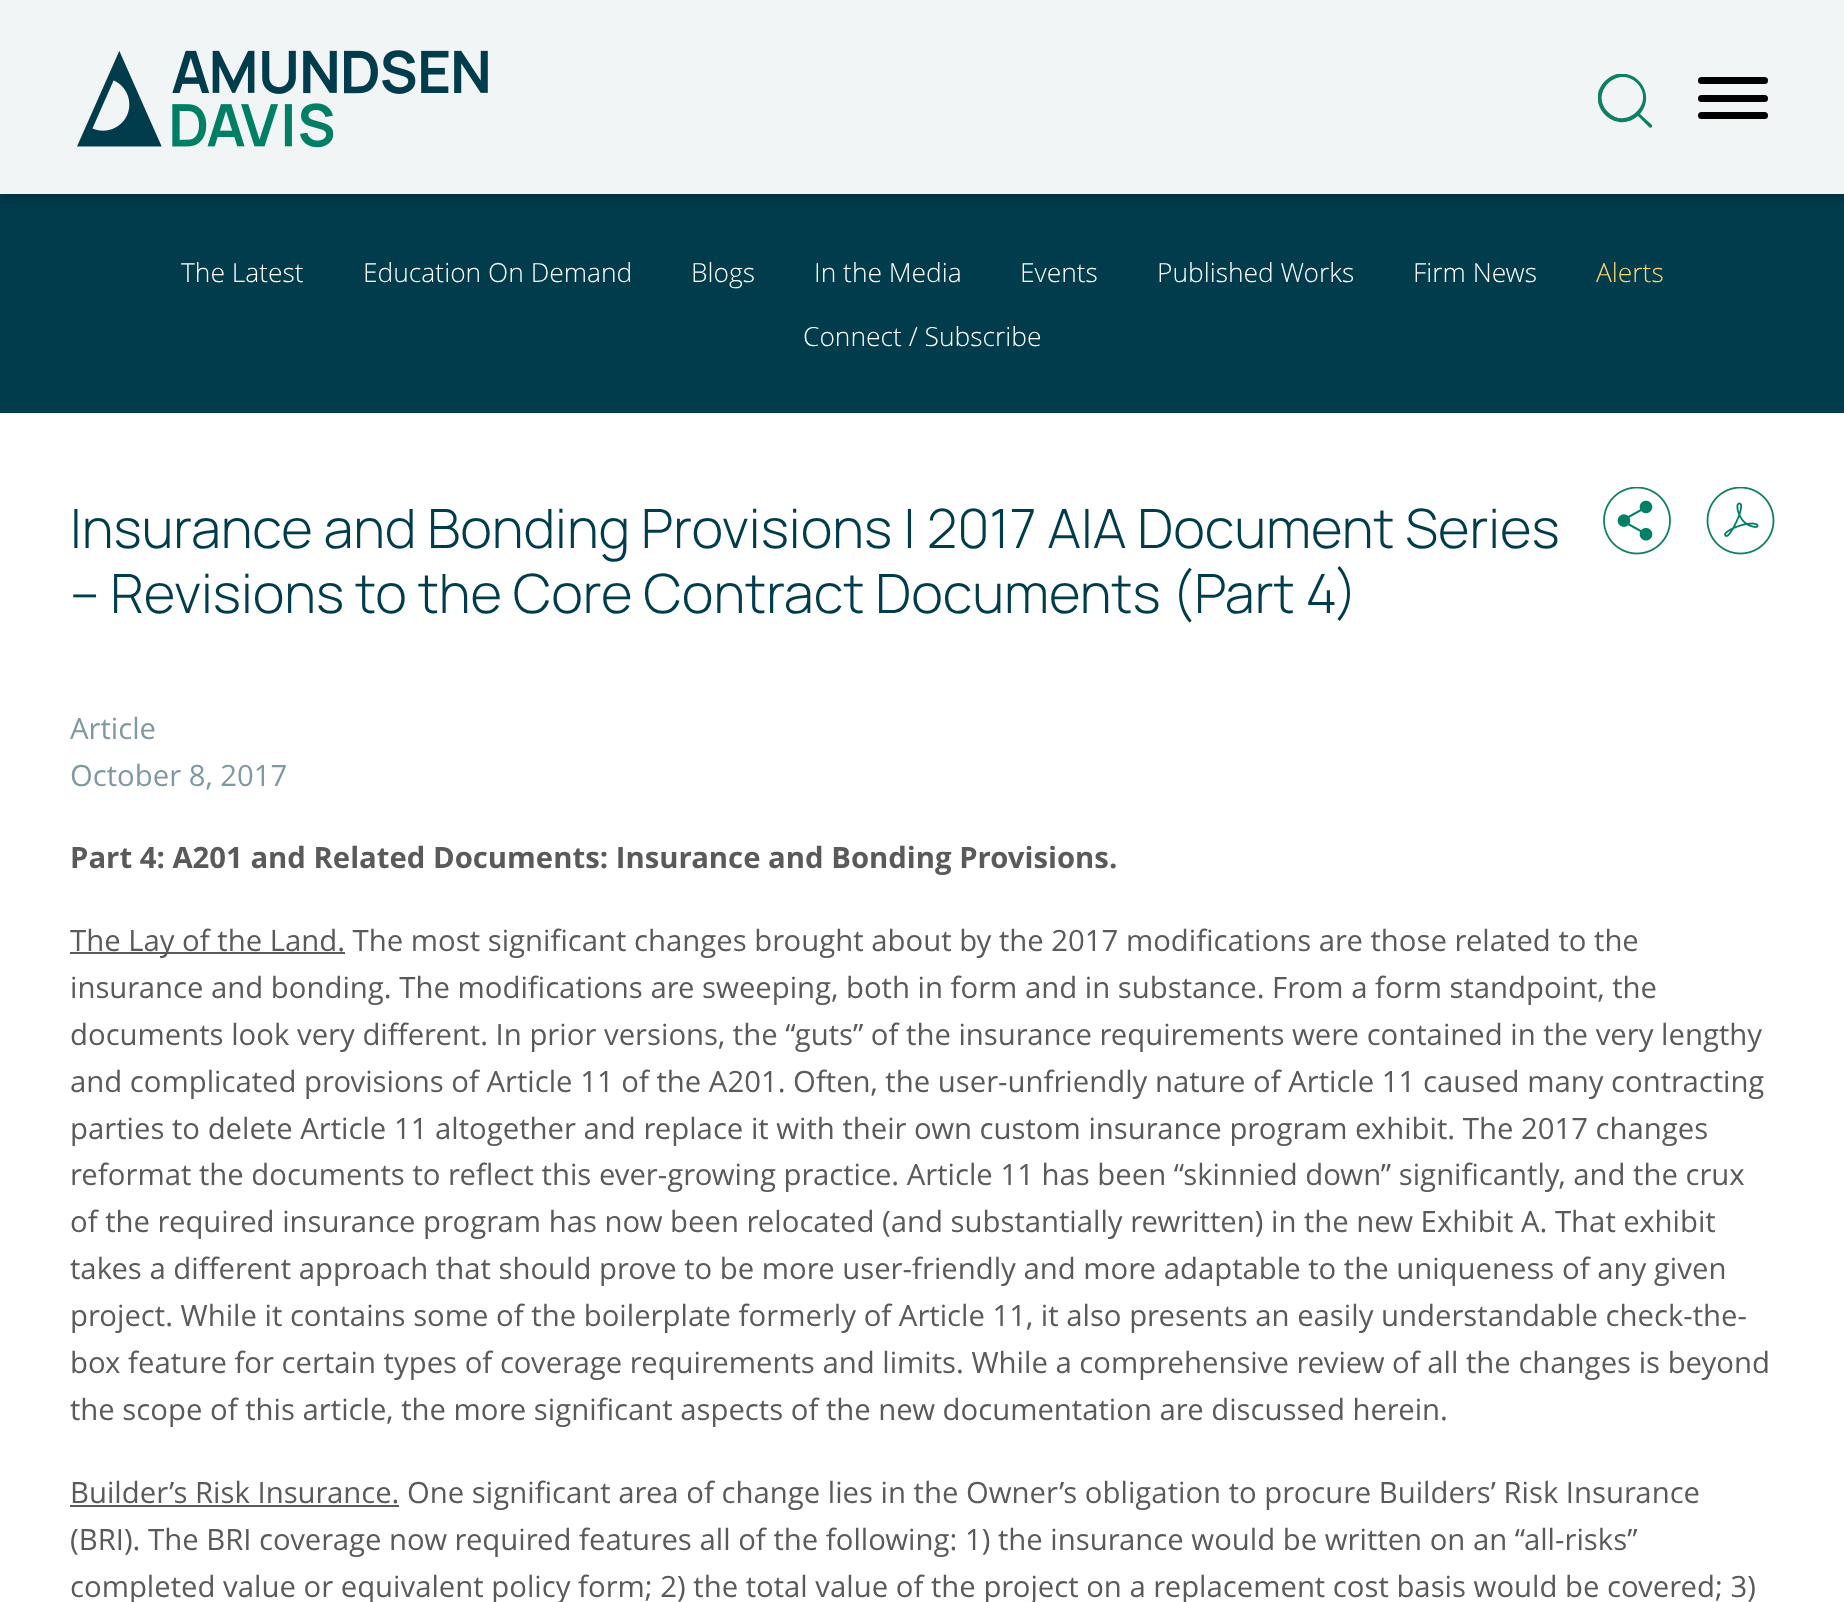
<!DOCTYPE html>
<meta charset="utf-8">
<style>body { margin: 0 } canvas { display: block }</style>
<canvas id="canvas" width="1844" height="1602"></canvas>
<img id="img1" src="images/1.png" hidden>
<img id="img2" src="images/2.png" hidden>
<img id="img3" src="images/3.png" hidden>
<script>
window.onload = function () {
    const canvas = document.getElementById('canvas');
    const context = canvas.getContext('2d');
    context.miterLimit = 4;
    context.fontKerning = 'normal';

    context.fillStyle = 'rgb(255, 255, 255)';
    context.fillRect(0, 0, 1844, 1602);
    context.fillStyle = 'rgb(1, 60, 77)';
    context.fillRect(0, 194, 1844, 219);
    context.fillStyle = 'rgba(0, 0, 0, 0.16)';
    context.filter = 'blur(5px)';
    context.beginPath();
    context.rect(0, 5, 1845, 195);
    context.fill();
    context.filter = 'none';
    context.fillStyle = 'rgb(242, 245, 246)';
    context.fillRect(0, 0, 1844, 194);
    context.drawImage(document.getElementById('img1'), 77, 50, 411, 98);
    context.save();
    context.beginPath();
    context.rect(1598, 74, 54, 54);
    context.clip();
    context.fillStyle = 'rgb(16, 127, 102)';
    context.beginPath();
    context.moveTo(1652, 125);
    context.lineTo(1640, 114);
    context.bezierCurveTo(1660, 90, 1627, 59, 1605, 81);
    context.bezierCurveTo(1583, 103, 1615, 136, 1638, 116);
    context.lineTo(1649, 127);
    context.bezierCurveTo(1651, 129, 1653, 126, 1652, 125);
    context.closePath();
    context.moveTo(1608, 112);
    context.bezierCurveTo(1589, 94, 1617, 64, 1637, 83);
    context.bezierCurveTo(1656, 103, 1626, 131, 1608, 112);
    context.closePath();
    context.fill();
    context.restore();
    context.fillStyle = 'rgb(0, 0, 0)';
    context.beginPath();
    context.roundRect(1698, 77, 70, 7, 3.5);
    context.fill();
    context.beginPath();
    context.roundRect(1698, 95, 70, 7, 3.5);
    context.fill();
    context.beginPath();
    context.roundRect(1698, 112, 70, 7, 3.5);
    context.fill();
    context.drawImage(document.getElementById('img2'), 1603, 487, 68, 68);
    context.drawImage(document.getElementById('img3'), 1706, 487, 69, 68);
    context.fillStyle = 'rgb(90, 90, 90)';
    context.fillRect(70, 952, 275, 2);
    context.fillRect(70, 1505, 329, 2);
    context.font = '300 26.4px Open Sans';
    context.fillStyle = 'rgb(255, 255, 255)';
    context.fillText('The Latest', 181, 282);
    context.fillText('Education On Demand', 363, 282);
    context.fillText('Blogs', 691, 282);
    context.fillText('In the Media', 814, 282);
    context.fillText('Events', 1020, 282);
    context.fillText('Published Works', 1157, 282);
    context.fillText('Firm News', 1413, 282);
    context.fillStyle = 'rgb(252, 214, 114)';
    context.fillText('Alerts', 1596, 282);
    context.fillStyle = 'rgb(255, 255, 255)';
    context.fillText('Connect / Subscribe', 803, 346);
    context.font = '300 54.25px Manrope';
    context.fillStyle = 'rgb(1, 60, 77)';
    context.fillText('Insurance and Bonding Provisions | 2017 AIA Document Series', 70, 548);
    context.fillText('– Revisions to the Core Contract Documents (Part 4)', 70, 613);
    context.font = '29.3px Open Sans';
    context.fillStyle = 'rgb(127, 153, 162)';
    context.fillText('Article', 70, 739);
    context.fillText('October 8, 2017', 70, 786);
    context.font = 'bold 29.3px Open Sans';
    context.fillStyle = 'rgb(90, 90, 90)';
    context.fillText('Part 4: A201 and Related Documents: Insurance and Bonding Provisions.', 70, 868);
    context.font = '29.3px Open Sans';
    context.fillText('The Lay of the Land. The most significant changes brought about by the 2017 modifications are those related to the', 70, 951);
    context.fillText('insurance and bonding. The modifications are sweeping, both in form and in substance. From a form standpoint, the', 70, 998);
    context.fillText('documents look very different. In prior versions, the “guts” of the insurance requirements were contained in the very lengthy', 70, 1045);
    context.fillText('and complicated provisions of Article 11 of the A201. Often, the user-unfriendly nature of Article 11 caused many contracting', 70, 1092);
    context.fillText('parties to delete Article 11 altogether and replace it with their own custom insurance program exhibit. The 2017 changes', 70, 1139);
    context.fillText('reformat the documents to reflect this ever-growing practice. Article 11 has been “skinnied down” significantly, and the crux', 70, 1185);
    context.fillText('of the required insurance program has now been relocated (and substantially rewritten) in the new Exhibit A. That exhibit', 70, 1232);
    context.fillText('takes a different approach that should prove to be more user-friendly and more adaptable to the uniqueness of any given', 70, 1279);
    context.fillText('project. While it contains some of the boilerplate formerly of Article 11, it also presents an easily understandable check-the-', 70, 1326);
    context.fillText('box feature for certain types of coverage requirements and limits. While a comprehensive review of all the changes is beyond', 70, 1373);
    context.fillText('the scope of this article, the more significant aspects of the new documentation are discussed herein.', 70, 1420);
    context.fillText('Builder’s Risk Insurance. One significant area of change lies in the Owner’s obligation to procure Builders’ Risk Insurance', 70, 1503);
    context.fillText('(BRI). The BRI coverage now required features all of the following: 1) the insurance would be written on an “all-risks”', 70, 1550);
    context.fillText('completed value or equivalent policy form; 2) the total value of the project on a replacement cost basis would be covered; 3)', 70, 1597);
};
</script>
